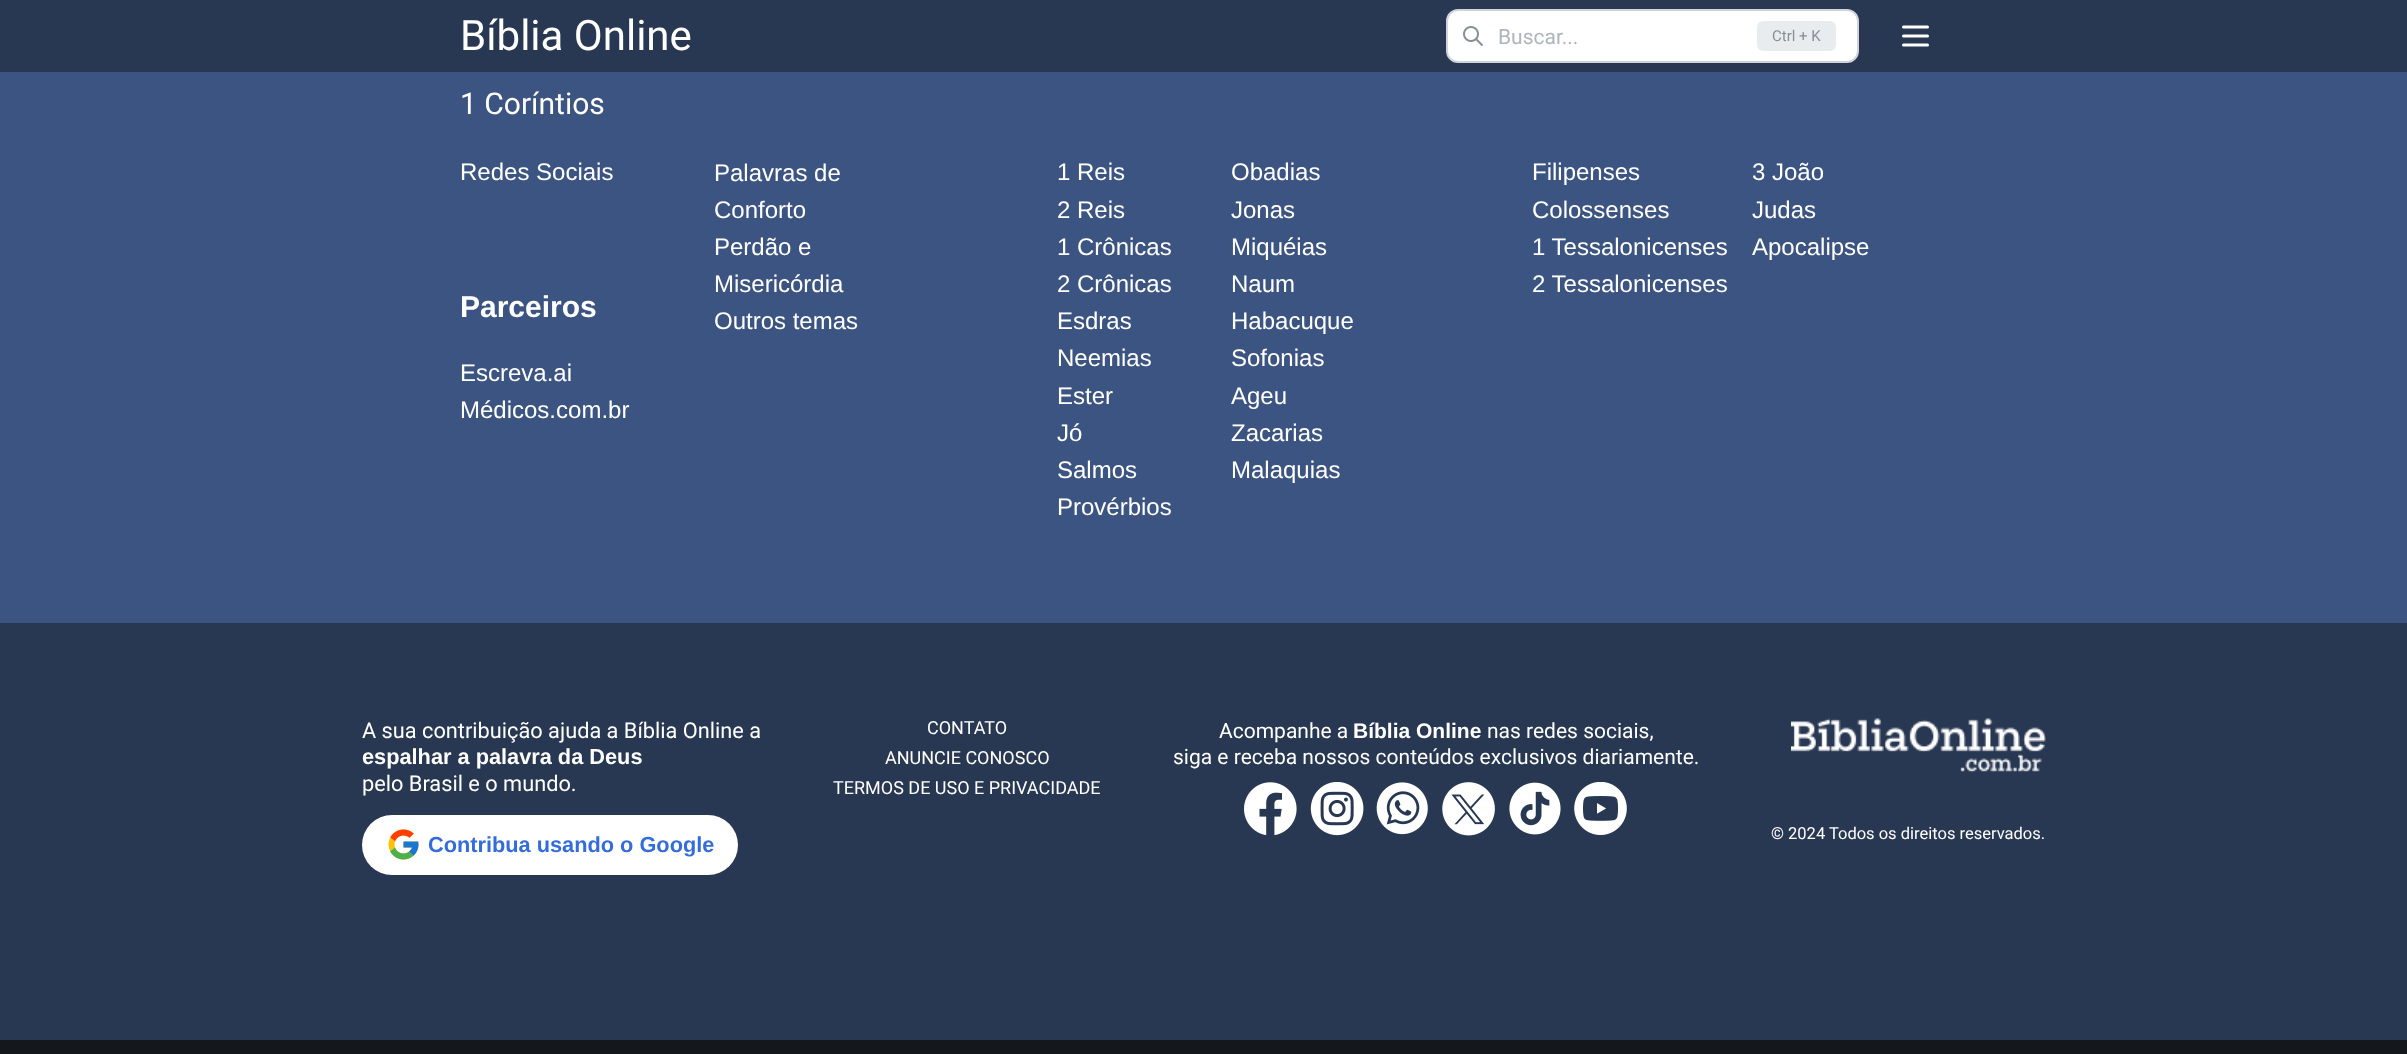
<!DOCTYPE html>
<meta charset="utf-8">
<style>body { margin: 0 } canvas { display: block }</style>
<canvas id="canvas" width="2407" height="1054"></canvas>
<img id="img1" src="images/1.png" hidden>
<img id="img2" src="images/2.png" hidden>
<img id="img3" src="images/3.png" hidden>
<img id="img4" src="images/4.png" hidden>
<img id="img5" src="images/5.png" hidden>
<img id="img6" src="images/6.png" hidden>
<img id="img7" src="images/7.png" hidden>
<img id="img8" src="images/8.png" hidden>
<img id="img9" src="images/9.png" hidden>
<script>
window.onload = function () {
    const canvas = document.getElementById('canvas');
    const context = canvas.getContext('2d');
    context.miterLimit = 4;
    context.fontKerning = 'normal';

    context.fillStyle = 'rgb(60, 84, 129)';
    context.fillRect(0, 0, 2407, 1054);
    context.fillStyle = 'rgb(40, 55, 82)';
    context.fillRect(0, 0, 2407, 72);
    context.fillStyle = 'rgb(255, 255, 255)';
    context.beginPath();
    context.roundRect(1447, 10, 411, 52, 11);
    context.fill();
    context.strokeStyle = 'rgb(206, 212, 218)';
    context.lineWidth = 2;
    context.stroke();
    context.drawImage(document.getElementById('img1'), 1463, 26, 20, 20);
    context.fillStyle = 'rgb(233, 236, 239)';
    context.beginPath();
    context.roundRect(1757, 21, 79, 30, 6);
    context.fill();
    context.beginPath();
    context.moveTo(1903.5, 27);
    context.lineTo(1927.5, 27);
    context.moveTo(1903.5, 36);
    context.lineTo(1927.5, 36);
    context.moveTo(1903.5, 45);
    context.lineTo(1927.5, 45);
    context.strokeStyle = 'rgb(255, 255, 255)';
    context.lineWidth = 3;
    context.lineCap = 'round';
    context.lineJoin = 'round';
    context.stroke();
    context.fillStyle = 'rgb(40, 55, 82)';
    context.fillRect(0, 623, 2407, 417);
    context.fillStyle = 'rgb(255, 255, 255)';
    context.beginPath();
    context.roundRect(362, 815, 376, 60, 30);
    context.fill();
    context.drawImage(document.getElementById('img2'), 388, 829, 31, 31);
    context.drawImage(document.getElementById('img3'), 1244, 782, 53, 54);
    context.drawImage(document.getElementById('img4'), 1310, 782, 54, 54);
    context.drawImage(document.getElementById('img5'), 1376, 782, 52, 53);
    context.drawImage(document.getElementById('img6'), 1442, 782, 53, 54);
    context.drawImage(document.getElementById('img7'), 1509, 782, 52, 53);
    context.drawImage(document.getElementById('img8'), 1574, 782, 53, 53);
    context.drawImage(document.getElementById('img9'), 1791, 718, 255, 54);
    context.fillStyle = 'rgb(20, 24, 28)';
    context.fillRect(0, 1040, 2407, 14);
    context.font = '42px Roboto';
    context.fillStyle = 'rgb(255, 255, 255)';
    context.fillText('Bíblia Online', 460, 50);
    context.font = '21px Roboto';
    context.fillStyle = 'rgb(173, 181, 189)';
    context.fillText('Buscar...', 1498, 44);
    context.font = '15px Roboto';
    context.fillStyle = 'rgb(134, 142, 150)';
    context.fillText('Ctrl + K', 1772, 41);
    context.font = '30px Roboto';
    context.fillStyle = 'rgb(255, 255, 255)';
    context.fillText('1 Coríntios', 460, 114);
    context.font = '24px Liberation Sans';
    context.fillText('Redes Sociais', 460, 180);
    context.font = 'bold 30px Liberation Sans';
    context.fillText('Parceiros', 460, 317);
    context.font = '24px Liberation Sans';
    context.fillText('Escreva.ai', 460, 381);
    context.fillText('Médicos.com.br', 460, 418);
    context.fillText('Palavras de', 714, 181);
    context.fillText('Conforto', 714, 218);
    context.fillText('Perdão e', 714, 255);
    context.fillText('Misericórdia', 714, 292);
    context.fillText('Outros temas', 714, 329);
    context.fillText('1 Reis', 1057, 180);
    context.fillText('Obadias', 1231, 180);
    context.fillText('2 Reis', 1057, 218);
    context.fillText('Jonas', 1231, 218);
    context.fillText('1 Crônicas', 1057, 255);
    context.fillText('Miquéias', 1231, 255);
    context.fillText('2 Crônicas', 1057, 292);
    context.fillText('Naum', 1231, 292);
    context.fillText('Esdras', 1057, 329);
    context.fillText('Habacuque', 1231, 329);
    context.fillText('Neemias', 1057, 366);
    context.fillText('Sofonias', 1231, 366);
    context.fillText('Ester', 1057, 404);
    context.fillText('Ageu', 1231, 404);
    context.fillText('Jó', 1057, 441);
    context.fillText('Zacarias', 1231, 441);
    context.fillText('Salmos', 1057, 478);
    context.fillText('Malaquias', 1231, 478);
    context.fillText('Provérbios', 1057, 515);
    context.fillText('Filipenses', 1532, 180);
    context.fillText('3 João', 1752, 180);
    context.fillText('Colossenses', 1532, 218);
    context.fillText('Judas', 1752, 218);
    context.fillText('1 Tessalonicenses', 1532, 255);
    context.fillText('Apocalipse', 1752, 255);
    context.fillText('2 Tessalonicenses', 1532, 292);
    context.font = '21.75px Roboto';
    context.fillText('A sua contribuição ajuda a Bíblia Online a', 362, 738);
    context.font = 'bold 21.75px Liberation Sans';
    context.fillText('espalhar a palavra da Deus', 362, 764);
    context.font = '21.75px Roboto';
    context.fillText('pelo Brasil e o mundo.', 362, 791);
    context.font = 'bold 21.75px Liberation Sans';
    context.fillStyle = 'rgb(52, 109, 219)';
    context.fillText('Contribua usando o Google', 428, 852);
    context.font = '18px Roboto';
    context.fillStyle = 'rgb(255, 255, 255)';
    context.fillText('CONTATO', 927, 734);
    context.fillText('ANUNCIE CONOSCO', 885, 764);
    context.fillText('TERMOS DE USO E PRIVACIDADE', 833, 794);
    context.font = '21px Roboto';
    context.fillText('Acompanhe a', 1219, 738);
    context.font = 'bold 21px Liberation Sans';
    context.fillText('Bíblia Online', 1353, 738);
    context.font = '21px Roboto';
    context.fillText('nas redes sociais,', 1487, 738);
    context.fillText('siga e receba nossos conteúdos exclusivos diariamente.', 1173, 764);
    context.font = '16.5px Roboto';
    context.fillText('© 2024 Todos os direitos reservados.', 1771, 839);
};
</script>
